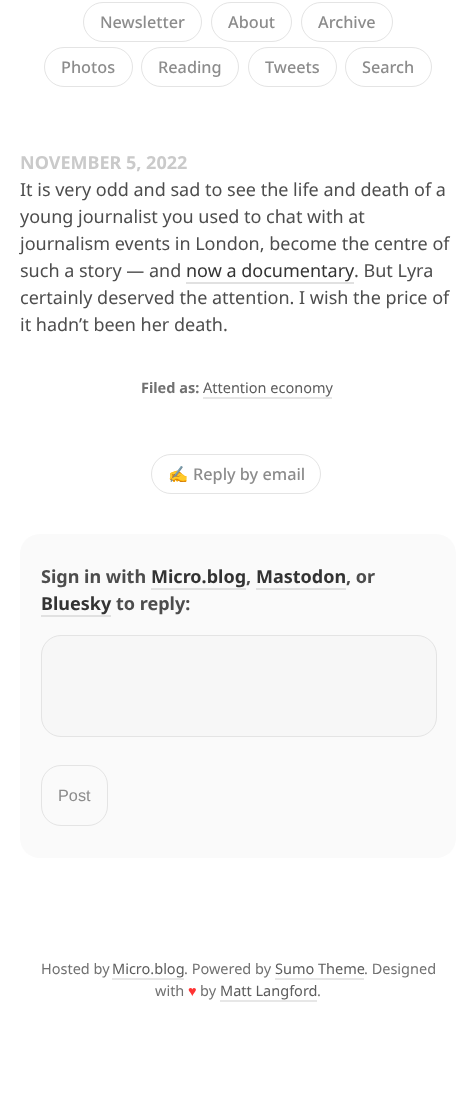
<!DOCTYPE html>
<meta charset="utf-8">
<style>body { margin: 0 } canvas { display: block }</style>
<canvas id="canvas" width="476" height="1101"></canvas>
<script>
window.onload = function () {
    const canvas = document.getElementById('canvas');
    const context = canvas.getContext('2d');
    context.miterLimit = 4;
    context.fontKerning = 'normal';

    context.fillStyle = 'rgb(255, 255, 255)';
    context.fillRect(0, 0, 476, 1101);
    context.beginPath();
    context.roundRect(83.5, 2.5, 118, 39, 19.5);
    context.strokeStyle = 'rgb(228, 228, 228)';
    context.stroke();
    context.beginPath();
    context.roundRect(211.5, 2.5, 80, 39, 19.5);
    context.stroke();
    context.beginPath();
    context.roundRect(301.5, 2.5, 91, 39, 19.5);
    context.stroke();
    context.beginPath();
    context.roundRect(44.5, 47.5, 88, 39, 19.5);
    context.stroke();
    context.beginPath();
    context.roundRect(141.5, 47.5, 97, 39, 19.5);
    context.stroke();
    context.beginPath();
    context.roundRect(248.5, 47.5, 88, 39, 19.5);
    context.stroke();
    context.beginPath();
    context.roundRect(345.5, 47.5, 86, 39, 19.5);
    context.stroke();
    context.fillStyle = 'rgb(225, 225, 225)';
    context.fillRect(186, 282, 168, 2);
    context.fillStyle = 'rgb(231, 231, 231)';
    context.fillRect(203, 397, 129, 2);
    context.beginPath();
    context.roundRect(151.5, 454.5, 169, 39, 19.5);
    context.stroke();
    context.fillStyle = 'rgb(250, 250, 250)';
    context.beginPath();
    context.roundRect(20, 534, 436, 324, 20);
    context.fill();
    context.fillStyle = 'rgb(225, 225, 225)';
    context.fillRect(151, 588, 95, 2);
    context.fillRect(256, 588, 90, 2);
    context.fillRect(41, 615, 70, 2);
    context.fillStyle = 'rgb(247, 247, 247)';
    context.beginPath();
    context.roundRect(41.5, 635.5, 395, 101, 19.5);
    context.fill();
    context.stroke();
    context.beginPath();
    context.roundRect(41.5, 765.5, 66, 60, 19.5);
    context.stroke();
    context.fillStyle = 'rgb(231, 231, 231)';
    context.fillRect(112, 978, 72, 2);
    context.fillRect(275, 978, 89, 2);
    context.fillRect(220, 1000, 97, 2);
    context.font = '500 16.25px Noto Sans';
    context.fillStyle = 'rgb(140, 140, 140)';
    context.fillText('Newsletter', 100, 28);
    context.fillText('About', 228, 28);
    context.fillText('Archive', 318, 28);
    context.fillText('Photos', 61, 73);
    context.fillText('Reading', 158, 73);
    context.fillText('Tweets', 265, 73);
    context.fillText('Search', 362, 73);
    context.font = 'bold 18px Noto Sans';
    context.fillStyle = 'rgb(202, 202, 202)';
    context.fillText('NOVEMBER 5, 2022', 20, 169);
    context.font = '18px Noto Sans';
    context.fillStyle = 'rgb(77, 77, 77)';
    context.fillText('It is very odd and sad to see the life and death of a', 20, 196);
    context.fillText('young journalist you used to chat with at', 20, 223);
    context.fillText('journalism events in London, become the centre of', 20, 250);
    context.fillText('such a story — and', 20, 277);
    context.fillStyle = 'rgb(51, 51, 51)';
    context.fillText('now a documentary', 186, 277);
    context.fillStyle = 'rgb(77, 77, 77)';
    context.fillText('. But Lyra', 354, 277);
    context.fillText('certainly deserved the attention. I wish the price of', 20, 304);
    context.fillText('it hadn’t been her death.', 20, 331);
    context.font = 'bold 14.5px Noto Sans';
    context.fillStyle = 'rgb(113, 113, 113)';
    context.fillText('Filed as:', 141, 393);
    context.font = '14.5px Noto Sans';
    context.fillStyle = 'rgb(92, 92, 92)';
    context.fillText('Attention economy', 203, 393);
    context.font = '16.25px Noto Color Emoji';
    context.fillStyle = 'rgb(140, 140, 140)';
    context.fillText('✍️', 168, 480);
    context.font = '500 16.25px Noto Sans';
    context.fillText('Reply by email', 193, 480);
    context.font = 'bold 18px Noto Sans';
    context.fillStyle = 'rgb(77, 77, 77)';
    context.fillText('Sign in with', 41, 583);
    context.fillStyle = 'rgb(51, 51, 51)';
    context.fillText('Micro.blog', 151, 583);
    context.fillStyle = 'rgb(77, 77, 77)';
    context.fillText(',', 246, 583);
    context.fillStyle = 'rgb(51, 51, 51)';
    context.fillText('Mastodon', 256, 583);
    context.fillStyle = 'rgb(77, 77, 77)';
    context.fillText(', or', 346, 583);
    context.fillStyle = 'rgb(51, 51, 51)';
    context.fillText('Bluesky', 41, 610);
    context.fillStyle = 'rgb(77, 77, 77)';
    context.fillText('to reply:', 116, 610);
    context.font = '16.25px Liberation Sans';
    context.fillStyle = 'rgb(140, 140, 140)';
    context.fillText('Post', 58, 801);
    context.font = '14.5px Noto Sans';
    context.fillStyle = 'rgb(113, 113, 113)';
    context.fillText('Hosted by', 41, 974);
    context.fillStyle = 'rgb(92, 92, 92)';
    context.fillText('Micro.blog', 112, 974);
    context.fillStyle = 'rgb(113, 113, 113)';
    context.fillText('. Powered by', 184, 974);
    context.fillStyle = 'rgb(92, 92, 92)';
    context.fillText('Sumo Theme', 275, 974);
    context.fillStyle = 'rgb(113, 113, 113)';
    context.fillText('. Designed', 364, 974);
    context.fillText('with', 155, 996);
    context.font = '14.5px Liberation Sans';
    context.fillStyle = 'rgb(255, 51, 51)';
    context.fillText('♥', 188, 996);
    context.font = '14.5px Noto Sans';
    context.fillStyle = 'rgb(113, 113, 113)';
    context.fillText('by', 200, 996);
    context.fillStyle = 'rgb(92, 92, 92)';
    context.fillText('Matt Langford', 220, 996);
    context.fillStyle = 'rgb(113, 113, 113)';
    context.fillText('.', 317, 996);
};
</script>
